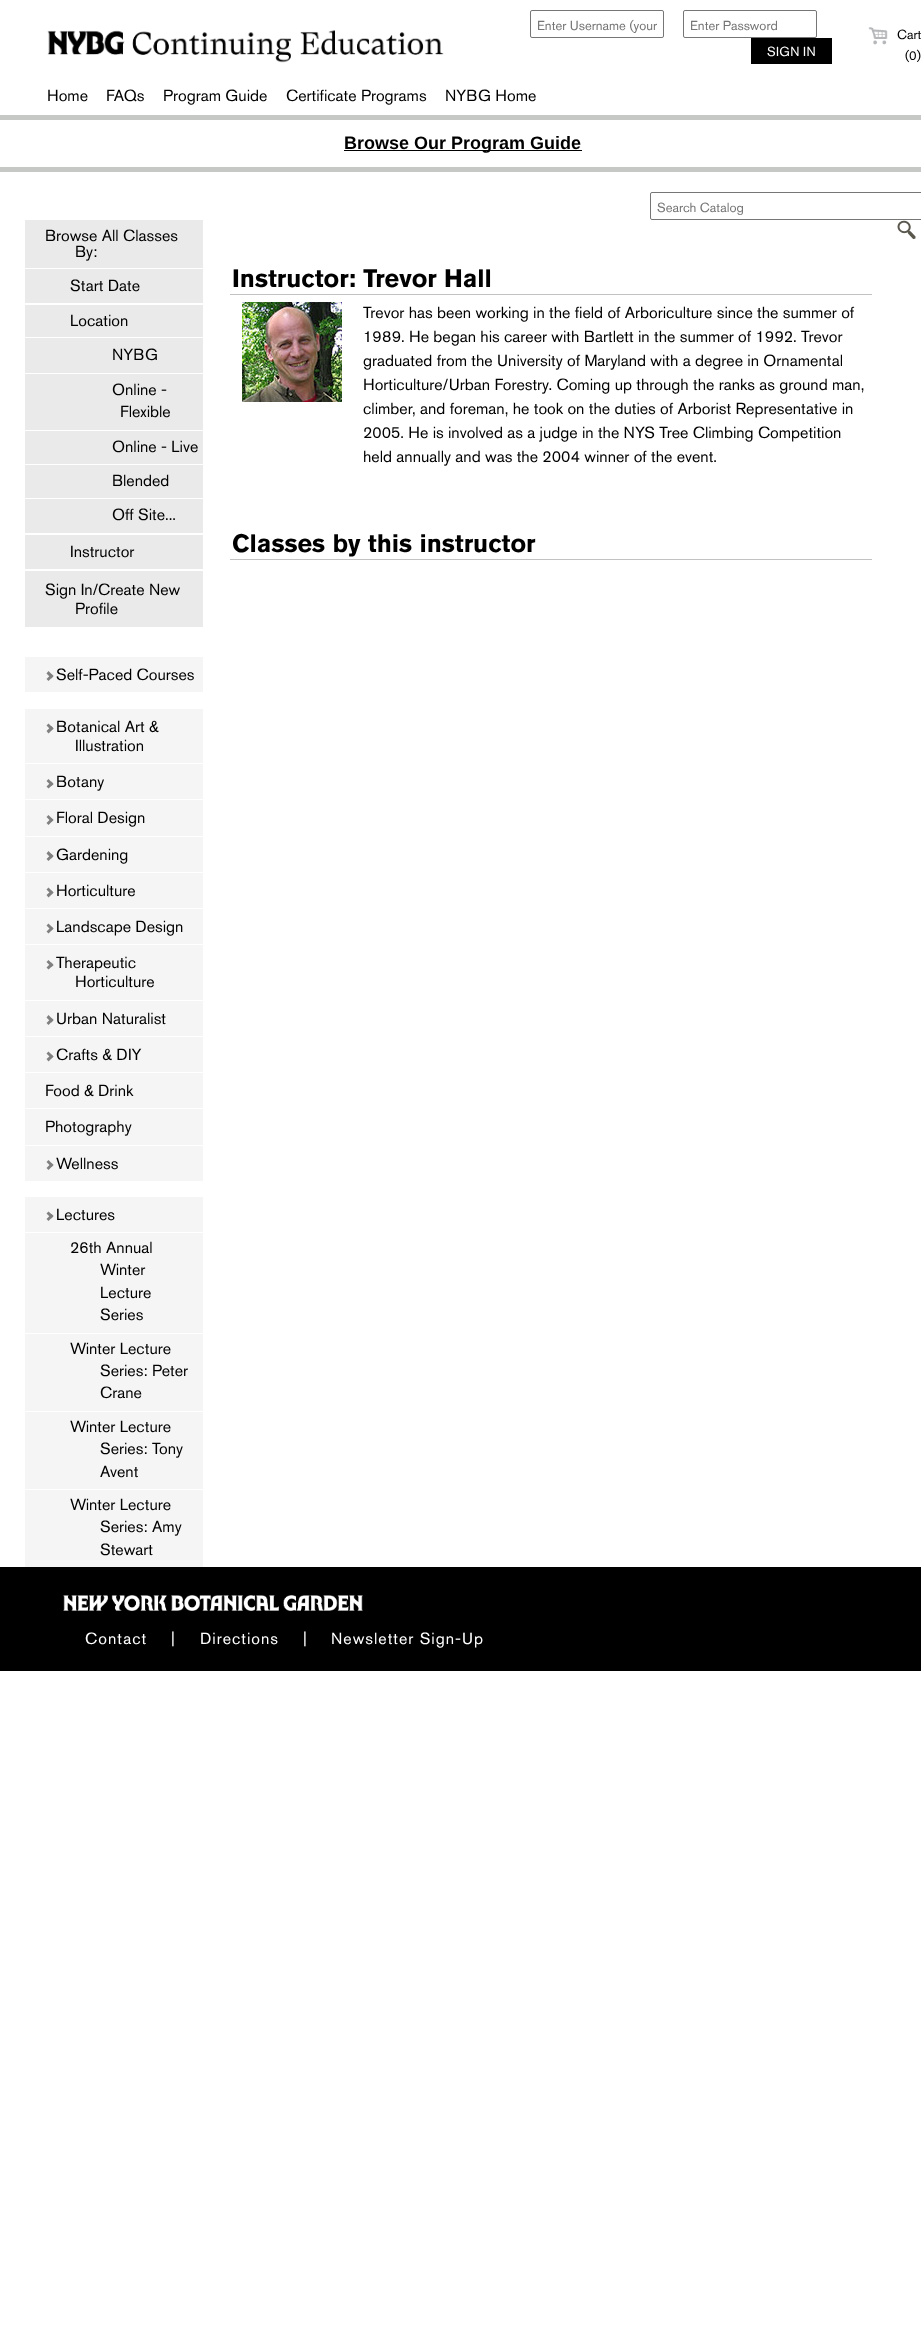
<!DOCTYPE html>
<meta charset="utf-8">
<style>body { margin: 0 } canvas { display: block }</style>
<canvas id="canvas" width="921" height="2340"></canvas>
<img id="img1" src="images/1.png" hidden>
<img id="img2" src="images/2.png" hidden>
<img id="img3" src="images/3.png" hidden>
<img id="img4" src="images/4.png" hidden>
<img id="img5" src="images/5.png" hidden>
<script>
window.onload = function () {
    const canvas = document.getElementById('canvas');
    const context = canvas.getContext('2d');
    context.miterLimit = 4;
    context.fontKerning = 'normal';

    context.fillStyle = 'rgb(255, 255, 255)';
    context.fillRect(0, 0, 921, 2340);
    context.fillStyle = 'rgb(198, 200, 198)';
    context.fillRect(0, 115, 921, 5);
    context.drawImage(document.getElementById('img1'), 47, 30, 397, 33);
    context.beginPath();
    context.roundRect(530.5, 10.5, 133, 27, 1.5);
    context.strokeStyle = 'rgb(118, 118, 118)';
    context.stroke();
    context.beginPath();
    context.roundRect(683.5, 10.5, 133, 27, 1.5);
    context.stroke();
    context.fillStyle = 'rgb(0, 0, 0)';
    context.fillRect(751, 38, 81, 26);
    context.drawImage(document.getElementById('img2'), 868, 27, 20, 18);
    context.fillStyle = 'rgb(198, 200, 198)';
    context.fillRect(0, 167, 921, 5);
    context.fillStyle = 'rgb(0, 0, 0)';
    context.fillRect(344, 150, 238, 1);
    context.beginPath();
    context.roundRect(650.5, 192.5, 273, 27, 1.5);
    context.stroke();
    context.drawImage(document.getElementById('img3'), 897, 220, 19, 19);
    context.fillStyle = 'rgb(234, 234, 234)';
    context.fillRect(25, 220, 178, 48);
    context.fillRect(25, 269, 178, 34);
    context.fillRect(25, 305, 178, 32);
    context.fillRect(25, 338, 178, 195);
    context.fillStyle = 'rgb(255, 255, 255)';
    context.fillRect(25, 373, 178, 1);
    context.fillRect(25, 430, 178, 1);
    context.fillRect(25, 464, 178, 1);
    context.fillRect(25, 498, 178, 1);
    context.fillStyle = 'rgb(234, 234, 234)';
    context.fillRect(25, 535, 178, 34);
    context.fillRect(25, 571, 178, 56);
    context.fillStyle = 'rgb(245, 245, 245)';
    context.fillRect(25, 657, 178, 35);
    context.fillStyle = 'rgb(128, 128, 128)';
    context.beginPath();
    context.moveTo(46.5, 673.5);
    context.lineTo(48.5, 671);
    context.lineTo(53.5, 676);
    context.lineTo(51.5, 678.5);
    context.closePath();
    context.fill();
    context.beginPath();
    context.moveTo(46.5, 679);
    context.lineTo(51.5, 674);
    context.lineTo(53.5, 676);
    context.lineTo(48.5, 681);
    context.closePath();
    context.fill();
    context.fillStyle = 'rgb(245, 245, 245)';
    context.fillRect(25, 709, 178, 54);
    context.fillStyle = 'rgb(128, 128, 128)';
    context.beginPath();
    context.moveTo(46.5, 725.5);
    context.lineTo(48.5, 723.5);
    context.lineTo(53.5, 728.5);
    context.lineTo(51.5, 730.5);
    context.closePath();
    context.fill();
    context.fillStyle = 'rgb(245, 245, 245)';
    context.fillRect(25, 764, 178, 35);
    context.fillStyle = 'rgb(128, 128, 128)';
    context.beginPath();
    context.moveTo(46.5, 731);
    context.lineTo(51.5, 726);
    context.lineTo(53.5, 728.5);
    context.lineTo(48.5, 733.5);
    context.closePath();
    context.moveTo(46.5, 781);
    context.lineTo(48.5, 779);
    context.lineTo(53.5, 784);
    context.lineTo(51.5, 786);
    context.closePath();
    context.fill();
    context.fillStyle = 'rgb(245, 245, 245)';
    context.fillRect(25, 800, 178, 36);
    context.fillStyle = 'rgb(128, 128, 128)';
    context.beginPath();
    context.moveTo(46.5, 786.5);
    context.lineTo(51.5, 781.5);
    context.lineTo(53.5, 784);
    context.lineTo(48.5, 788.5);
    context.closePath();
    context.moveTo(46.5, 817);
    context.lineTo(48.5, 815);
    context.lineTo(53.5, 820);
    context.lineTo(51.5, 822);
    context.closePath();
    context.fill();
    context.fillStyle = 'rgb(245, 245, 245)';
    context.fillRect(25, 837, 178, 35);
    context.fillStyle = 'rgb(128, 128, 128)';
    context.beginPath();
    context.moveTo(46.5, 823);
    context.lineTo(51.5, 818);
    context.lineTo(53.5, 820);
    context.lineTo(48.5, 825);
    context.closePath();
    context.moveTo(46.5, 853.5);
    context.lineTo(48.5, 851);
    context.lineTo(53.5, 856);
    context.lineTo(51.5, 858.5);
    context.closePath();
    context.fill();
    context.fillStyle = 'rgb(245, 245, 245)';
    context.fillRect(25, 873, 178, 35);
    context.fillStyle = 'rgb(128, 128, 128)';
    context.beginPath();
    context.moveTo(46.5, 859);
    context.lineTo(51.5, 854);
    context.lineTo(53.5, 856);
    context.lineTo(48.5, 861);
    context.closePath();
    context.moveTo(46.5, 889.5);
    context.lineTo(48.5, 887.5);
    context.lineTo(53.5, 892.5);
    context.lineTo(51.5, 894.5);
    context.closePath();
    context.fill();
    context.fillStyle = 'rgb(245, 245, 245)';
    context.fillRect(25, 909, 178, 35);
    context.fillStyle = 'rgb(128, 128, 128)';
    context.beginPath();
    context.moveTo(46.5, 895);
    context.lineTo(51.5, 890.5);
    context.lineTo(53.5, 892.5);
    context.lineTo(48.5, 897.5);
    context.closePath();
    context.moveTo(46.5, 925.5);
    context.lineTo(48.5, 923.5);
    context.lineTo(53.5, 928.5);
    context.lineTo(51.5, 930.5);
    context.closePath();
    context.fill();
    context.fillStyle = 'rgb(245, 245, 245)';
    context.fillRect(25, 945, 178, 55);
    context.fillStyle = 'rgb(128, 128, 128)';
    context.beginPath();
    context.moveTo(46.5, 931.5);
    context.lineTo(51.5, 926.5);
    context.lineTo(53.5, 928.5);
    context.lineTo(48.5, 933.5);
    context.closePath();
    context.moveTo(46.5, 962);
    context.lineTo(48.5, 960);
    context.lineTo(53.5, 965);
    context.lineTo(51.5, 967);
    context.closePath();
    context.fill();
    context.fillStyle = 'rgb(245, 245, 245)';
    context.fillRect(25, 1001, 178, 35);
    context.fillStyle = 'rgb(128, 128, 128)';
    context.beginPath();
    context.moveTo(46.5, 967.5);
    context.lineTo(51.5, 962.5);
    context.lineTo(53.5, 965);
    context.lineTo(48.5, 969.5);
    context.closePath();
    context.moveTo(46.5, 1017.5);
    context.lineTo(48.5, 1015);
    context.lineTo(53.5, 1020);
    context.lineTo(51.5, 1022.5);
    context.closePath();
    context.fill();
    context.fillStyle = 'rgb(245, 245, 245)';
    context.fillRect(25, 1037, 178, 35);
    context.fillStyle = 'rgb(128, 128, 128)';
    context.beginPath();
    context.moveTo(46.5, 1023);
    context.lineTo(51.5, 1018);
    context.lineTo(53.5, 1020);
    context.lineTo(48.5, 1025);
    context.closePath();
    context.moveTo(46.5, 1053.5);
    context.lineTo(48.5, 1051.5);
    context.lineTo(53.5, 1056.5);
    context.lineTo(51.5, 1058.5);
    context.closePath();
    context.fill();
    context.beginPath();
    context.moveTo(46.5, 1059);
    context.lineTo(51.5, 1054.5);
    context.lineTo(53.5, 1056.5);
    context.lineTo(48.5, 1061.5);
    context.closePath();
    context.fill();
    context.fillStyle = 'rgb(245, 245, 245)';
    context.fillRect(25, 1073, 178, 35);
    context.fillRect(25, 1109, 178, 36);
    context.fillRect(25, 1146, 178, 35);
    context.fillStyle = 'rgb(128, 128, 128)';
    context.beginPath();
    context.moveTo(46.5, 1162);
    context.lineTo(48.5, 1160);
    context.lineTo(53.5, 1165);
    context.lineTo(51.5, 1167);
    context.closePath();
    context.fill();
    context.beginPath();
    context.moveTo(46.5, 1168);
    context.lineTo(51.5, 1163);
    context.lineTo(53.5, 1165);
    context.lineTo(48.5, 1170);
    context.closePath();
    context.fill();
    context.fillStyle = 'rgb(245, 245, 245)';
    context.fillRect(25, 1197, 178, 35);
    context.fillStyle = 'rgb(128, 128, 128)';
    context.beginPath();
    context.moveTo(46.5, 1213.5);
    context.lineTo(48.5, 1211.5);
    context.lineTo(53.5, 1216);
    context.lineTo(51.5, 1218.5);
    context.closePath();
    context.fill();
    context.beginPath();
    context.moveTo(46.5, 1219);
    context.lineTo(51.5, 1214);
    context.lineTo(53.5, 1216);
    context.lineTo(48.5, 1221);
    context.closePath();
    context.fill();
    context.fillStyle = 'rgb(245, 245, 245)';
    context.fillRect(25, 1233, 178, 100);
    context.fillRect(25, 1334, 178, 77);
    context.fillRect(25, 1412, 178, 77);
    context.fillRect(25, 1490, 178, 77);
    context.fillStyle = 'rgb(194, 194, 194)';
    context.fillRect(230, 294, 642, 1);
    context.drawImage(document.getElementById('img4'), 242, 302, 100, 100);
    context.fillRect(230, 559, 642, 1);
    context.fillStyle = 'rgb(0, 0, 0)';
    context.fillRect(0, 1567, 921, 104);
    context.drawImage(document.getElementById('img5'), 63, 1595, 300, 16);
    context.font = '13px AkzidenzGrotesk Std';
    context.fillStyle = 'rgb(117, 117, 117)';
    context.fillText('Enter Username (your', 537, 30);
    context.fillText('Enter Password', 690, 30);
    context.fillStyle = 'rgb(255, 255, 255)';
    context.fillText('SIGN IN', 767, 56);
    context.fillStyle = 'rgb(0, 0, 0)';
    context.fillText('Cart', 897, 39);
    context.fillText('(0)', 905, 60);
    context.font = '16px AkzidenzGrotesk Std';
    context.fillText('Home', 47, 101);
    context.fillText('FAQs', 106, 101);
    context.fillText('Program Guide', 163, 101);
    context.fillText('Certificate Programs', 286, 101);
    context.fillText('NYBG Home', 445, 101);
    context.font = 'bold 18px Liberation Sans';
    context.fillText('Browse Our Program Guide', 344, 149);
    context.font = '13px AkzidenzGrotesk Std';
    context.fillStyle = 'rgb(117, 117, 117)';
    context.fillText('Search Catalog', 657, 212);
    context.font = '16px AkzidenzGrotesk Std';
    context.fillStyle = 'rgb(0, 0, 0)';
    context.fillText('Browse All Classes', 45, 241);
    context.fillText('By:', 75, 257);
    context.fillText('Start Date', 70, 291);
    context.fillText('Location', 70, 326);
    context.fillText('NYBG', 112, 360);
    context.fillText('Online -', 112, 395);
    context.fillText('Flexible', 120, 417);
    context.fillText('Online - Live', 112, 452);
    context.fillText('Blended', 112, 486);
    context.fillText('Off Site...', 112, 520);
    context.fillText('Instructor', 70, 557);
    context.fillText('Sign In/Create New', 45, 595);
    context.fillText('Profile', 75, 614);
    context.fillText('Self-Paced Courses', 56, 680);
    context.fillText('Botanical Art &', 56, 732);
    context.fillText('Illustration', 75, 751);
    context.fillText('Botany', 56, 787);
    context.fillText('Floral Design', 56, 823);
    context.fillText('Gardening', 56, 860);
    context.fillText('Horticulture', 56, 896);
    context.fillText('Landscape Design', 56, 932);
    context.fillText('Therapeutic', 56, 968);
    context.fillText('Horticulture', 75, 987);
    context.fillText('Urban Naturalist', 56, 1024);
    context.fillText('Crafts & DIY', 56, 1060);
    context.fillText('Food & Drink', 45, 1096);
    context.fillText('Photography', 45, 1132);
    context.fillText('Wellness', 56, 1169);
    context.fillText('Lectures', 56, 1220);
    context.fillText('26th Annual', 70, 1253);
    context.fillText('Winter', 100, 1275);
    context.fillText('Lecture', 100, 1298);
    context.fillText('Series', 100, 1320);
    context.fillText('Winter Lecture', 70, 1354);
    context.fillText('Series: Peter', 100, 1376);
    context.fillText('Crane', 100, 1398);
    context.fillText('Winter Lecture', 70, 1432);
    context.fillText('Series: Tony', 100, 1454);
    context.fillText('Avent', 100, 1477);
    context.fillText('Winter Lecture', 70, 1510);
    context.fillText('Series: Amy', 100, 1532);
    context.fillText('Stewart', 100, 1555);
    context.font = 'bold 25px AkzidenzGrotesk Std';
    context.fillText('Instructor: Trevor Hall', 232, 287);
    context.font = '16px AkzidenzGrotesk Std';
    context.fillText('Trevor has been working in the field of Arboriculture since the summer of', 363, 318);
    context.fillText('1989. He began his career with Bartlett in the summer of 1992. Trevor', 363, 342);
    context.fillText('graduated from the University of Maryland with a degree in Ornamental', 363, 366);
    context.fillText('Horticulture/Urban Forestry. Coming up through the ranks as ground man,', 363, 390);
    context.fillText('climber, and foreman, he took on the duties of Arborist Representative in', 363, 414);
    context.fillText('2005. He is involved as a judge in the NYS Tree Climbing Competition', 363, 438);
    context.fillText('held annually and was the 2004 winner of the event.', 363, 462);
    context.font = 'bold 25px AkzidenzGrotesk Std';
    context.fillText('Classes by this instructor', 232, 552);
    context.letterSpacing = '1px';
    context.font = '16px AkzidenzGrotesk Std';
    context.fillStyle = 'rgb(255, 255, 255)';
    context.fillText('Contact', 85, 1644);
    context.fillText('|', 171, 1644);
    context.fillText('Directions', 200, 1644);
    context.fillText('|', 303, 1644);
    context.fillText('Newsletter Sign-Up', 331, 1644);
};
</script>
